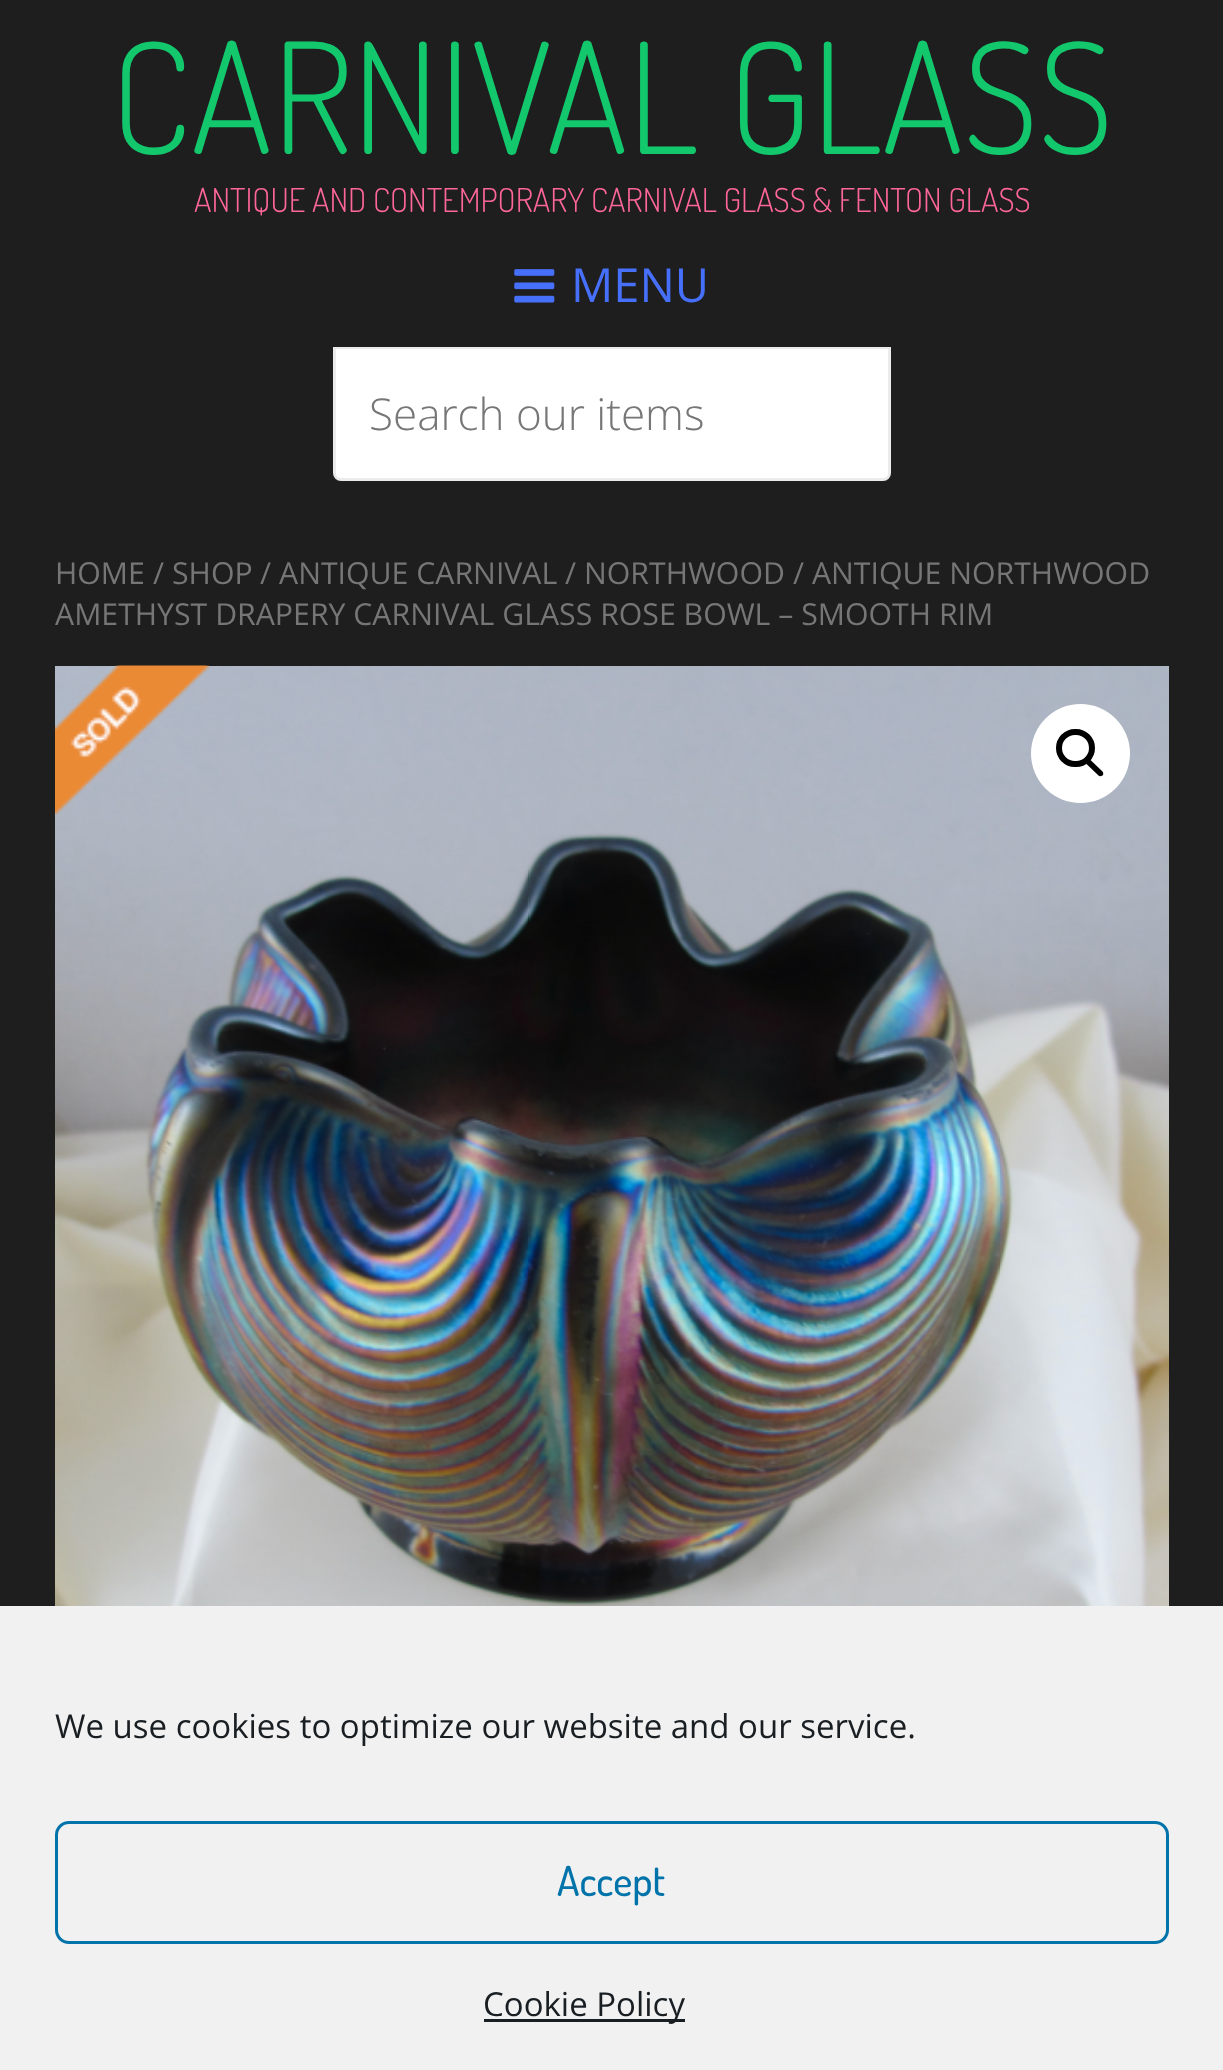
<!DOCTYPE html>
<meta charset="utf-8">
<style>body { margin: 0 } canvas { display: block }</style>
<canvas id="canvas" width="1223" height="2070"></canvas>
<img id="img1" src="images/1.png" hidden>
<img id="img2" src="images/3.png" hidden>
<img id="img3" src="images/2.png" hidden>
<script>
window.onload = function () {
    const canvas = document.getElementById('canvas');
    const context = canvas.getContext('2d');
    context.miterLimit = 4;
    context.fontKerning = 'normal';

    context.fillStyle = 'rgb(30, 30, 30)';
    context.fillRect(0, 0, 1223, 2070);
    context.drawImage(document.getElementById('img1'), 514, 269, 41, 34);
    context.fillStyle = 'rgb(255, 255, 255)';
    context.beginPath();
    context.roundRect(333, 347, 558, 134, [0, 0, 8, 8]);
    context.fill();
    context.fillStyle = 'rgb(235, 235, 235)';
    context.fillRect(336, 347, 552, 2);
    context.fillStyle = 'rgba(0, 0, 0, 0.08)';
    context.beginPath();
    context.moveTo(333, 346);
    context.lineTo(891, 346);
    context.lineTo(891, 473);
    context.bezierCurveTo(891, 478, 887, 481, 883, 481);
    context.lineTo(341, 481);
    context.bezierCurveTo(336, 481, 333, 478, 333, 473);
    context.closePath();
    context.moveTo(336, 346);
    context.lineTo(888, 346);
    context.lineTo(888, 473);
    context.bezierCurveTo(888, 476, 886, 478, 883, 478);
    context.lineTo(341, 478);
    context.bezierCurveTo(338, 478, 336, 476, 336, 473);
    context.closePath();
    context.fill('evenodd');
    context.drawImage(document.getElementById('img2'), 55, 666, 1114, 940);
    context.drawImage(document.getElementById('img3'), 55, 665, 154, 149);
    context.fillStyle = 'rgb(255, 255, 255)';
    context.beginPath();
    context.arc(1080.5, 753.5, 49.5, 0, 2 * Math.PI);
    context.fill();
    context.beginPath();
    context.roundRect(1059, 732, 33, 32, 16);
    context.strokeStyle = 'rgb(0, 0, 0)';
    context.lineWidth = 6;
    context.stroke();
    context.fillStyle = 'rgb(0, 0, 0)';
    context.beginPath();
    context.moveTo(1086.5, 760);
    context.bezierCurveTo(1088, 759, 1089.5, 759, 1090.5, 760);
    context.lineTo(1102.5, 771.5);
    context.bezierCurveTo(1103.5, 773, 1103.5, 774.5, 1102.5, 775.5);
    context.bezierCurveTo(1101, 776.5, 1099.5, 776.5, 1098.5, 775.5);
    context.lineTo(1086.5, 764);
    context.bezierCurveTo(1085.5, 763, 1085.5, 761, 1086.5, 760);
    context.closePath();
    context.fill();
    context.fillStyle = 'rgb(241, 241, 241)';
    context.fillRect(0, 1606, 1223, 464);
    context.beginPath();
    context.roundRect(56.5, 1822.5, 1111, 120, 12.5);
    context.strokeStyle = 'rgb(0, 115, 170)';
    context.lineWidth = 3;
    context.stroke();
    context.fillStyle = 'rgb(25, 30, 35)';
    context.fillRect(484, 2019, 201, 3);
    context.font = '300 154px Dosis';
    context.fillStyle = 'rgb(19, 199, 109)';
    context.fillText('CARNIVAL GLASS', 111, 154);
    context.font = '300 33px Dosis';
    context.fillStyle = 'rgb(255, 102, 153)';
    context.fillText('ANTIQUE AND CONTEMPORARY CARNIVAL GLASS & FENTON GLASS', 194, 212);
    context.font = '47px Open Sans';
    context.fillStyle = 'rgb(70, 111, 250)';
    context.fillText('MENU', 571, 302);
    context.font = '300 44px Open Sans';
    context.fillStyle = 'rgb(118, 118, 118)';
    context.fillText('Search our items', 369, 430);
    context.font = '30.25px Open Sans';
    context.fillText('HOME', 55, 584);
    context.fillText('/', 153, 584);
    context.fillText('SHOP', 172, 584);
    context.fillText('/', 260, 584);
    context.fillText('ANTIQUE CARNIVAL', 279, 584);
    context.fillText('/', 565, 584);
    context.fillText('NORTHWOOD', 584, 584);
    context.fillText('/ ANTIQUE NORTHWOOD', 793, 584);
    context.fillText('AMETHYST DRAPERY CARNIVAL GLASS ROSE BOWL – SMOOTH RIM', 55, 625);
    context.font = '33px Open Sans';
    context.fillStyle = 'rgb(25, 30, 35)';
    context.fillText('We use cookies to optimize our website and our service.', 55, 1738);
    context.font = '500 41px Dosis';
    context.fillStyle = 'rgb(0, 115, 170)';
    context.fillText('Accept', 557, 1896);
    context.font = '33px Open Sans';
    context.fillStyle = 'rgb(25, 30, 35)';
    context.fillText('Cookie Policy', 483, 2016);
};
</script>
